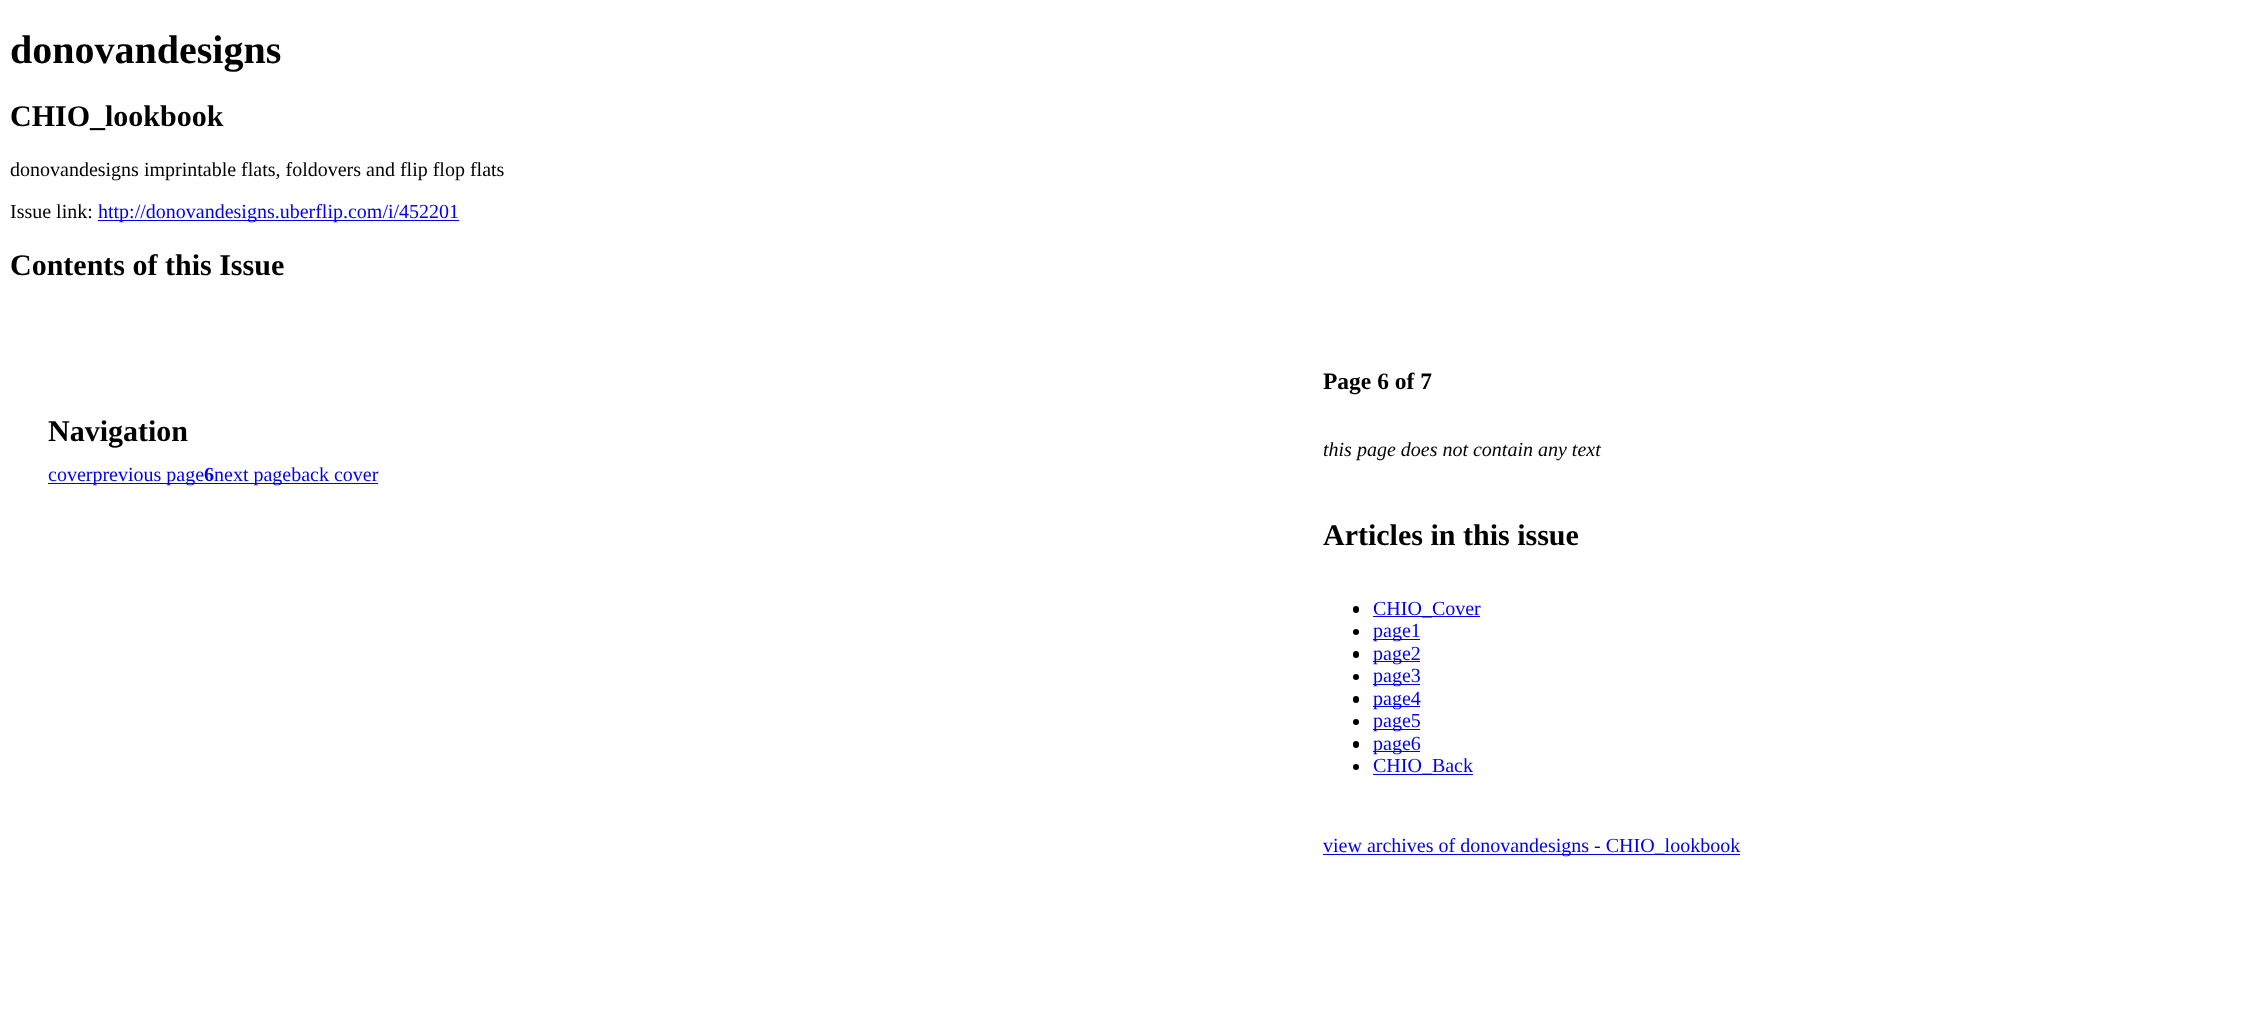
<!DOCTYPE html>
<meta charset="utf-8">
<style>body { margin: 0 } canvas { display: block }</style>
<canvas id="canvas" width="2260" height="1023"></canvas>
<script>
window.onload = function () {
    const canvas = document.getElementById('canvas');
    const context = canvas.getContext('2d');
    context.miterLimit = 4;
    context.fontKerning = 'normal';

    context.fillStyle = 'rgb(255, 255, 255)';
    context.fillRect(0, 0, 2260, 1023);
    context.fillStyle = 'rgb(0, 0, 238)';
    context.fillRect(98, 220, 361, 1);
    context.fillRect(48, 483, 330, 1);
    context.fillStyle = 'rgb(0, 0, 0)';
    context.beginPath();
    context.roundRect(1353, 606, 6, 7, 3);
    context.fill();
    context.fillStyle = 'rgb(0, 0, 238)';
    context.fillRect(1373, 616, 107, 1);
    context.fillStyle = 'rgb(0, 0, 0)';
    context.beginPath();
    context.arc(1356, 632, 3, 0, 2 * Math.PI);
    context.fill();
    context.fillStyle = 'rgb(0, 0, 238)';
    context.fillRect(1373, 639, 47, 1);
    context.fillStyle = 'rgb(0, 0, 0)';
    context.beginPath();
    context.roundRect(1353, 651, 6, 7, 3);
    context.fill();
    context.fillStyle = 'rgb(0, 0, 238)';
    context.fillRect(1373, 661, 47, 1);
    context.fillStyle = 'rgb(0, 0, 0)';
    context.beginPath();
    context.arc(1356, 677, 3, 0, 2 * Math.PI);
    context.fill();
    context.fillStyle = 'rgb(0, 0, 238)';
    context.fillRect(1373, 684, 47, 1);
    context.fillStyle = 'rgb(0, 0, 0)';
    context.beginPath();
    context.roundRect(1353, 696, 6, 7, 3);
    context.fill();
    context.fillStyle = 'rgb(0, 0, 238)';
    context.fillRect(1373, 706, 47, 1);
    context.fillStyle = 'rgb(0, 0, 0)';
    context.beginPath();
    context.arc(1356, 722, 3, 0, 2 * Math.PI);
    context.fill();
    context.fillStyle = 'rgb(0, 0, 238)';
    context.fillRect(1373, 729, 47, 1);
    context.fillStyle = 'rgb(0, 0, 0)';
    context.beginPath();
    context.roundRect(1353, 741, 6, 7, 3);
    context.fill();
    context.fillStyle = 'rgb(0, 0, 238)';
    context.fillRect(1373, 751, 47, 1);
    context.fillStyle = 'rgb(0, 0, 0)';
    context.beginPath();
    context.arc(1356, 767, 3, 0, 2 * Math.PI);
    context.fill();
    context.fillStyle = 'rgb(0, 0, 238)';
    context.fillRect(1373, 774, 100, 1);
    context.fillRect(1323, 854, 417, 1);
    context.font = 'bold 40px Liberation Serif';
    context.fillStyle = 'rgb(0, 0, 0)';
    context.fillText('donovandesigns', 10, 63);
    context.font = 'bold 30px Liberation Serif';
    context.fillText('CHIO_lookbook', 10, 126);
    context.font = '20px Liberation Serif';
    context.fillText('donovandesigns imprintable flats, foldovers and flip flop flats', 10, 176);
    context.fillText('Issue link:', 10, 218);
    context.fillStyle = 'rgb(0, 0, 238)';
    context.fillText('http://donovandesigns.uberflip.com/i/452201', 98, 218);
    context.font = 'bold 30px Liberation Serif';
    context.fillStyle = 'rgb(0, 0, 0)';
    context.fillText('Contents of this Issue', 10, 275);
    context.fillText('Navigation', 48, 441);
    context.font = '20px Liberation Serif';
    context.fillStyle = 'rgb(0, 0, 238)';
    context.fillText('coverprevious page', 48, 481);
    context.font = 'bold 20px Liberation Serif';
    context.fillText('6', 204, 481);
    context.font = '20px Liberation Serif';
    context.fillText('next pageback cover', 214, 481);
    context.font = 'bold 23.5px Liberation Serif';
    context.fillStyle = 'rgb(0, 0, 0)';
    context.fillText('Page 6 of 7', 1323, 389);
    context.font = 'italic 20px Liberation Serif';
    context.fillText('this page does not contain any text', 1323, 456);
    context.font = 'bold 30px Liberation Serif';
    context.fillText('Articles in this issue', 1323, 545);
    context.font = '20px Liberation Serif';
    context.fillStyle = 'rgb(0, 0, 238)';
    context.fillText('CHIO_Cover', 1373, 615);
    context.fillText('page1', 1373, 637);
    context.fillText('page2', 1373, 660);
    context.fillText('page3', 1373, 682);
    context.fillText('page4', 1373, 705);
    context.fillText('page5', 1373, 727);
    context.fillText('page6', 1373, 750);
    context.fillText('CHIO_Back', 1373, 772);
    context.fillText('view archives of donovandesigns - CHIO_lookbook', 1323, 852);
};
</script>
